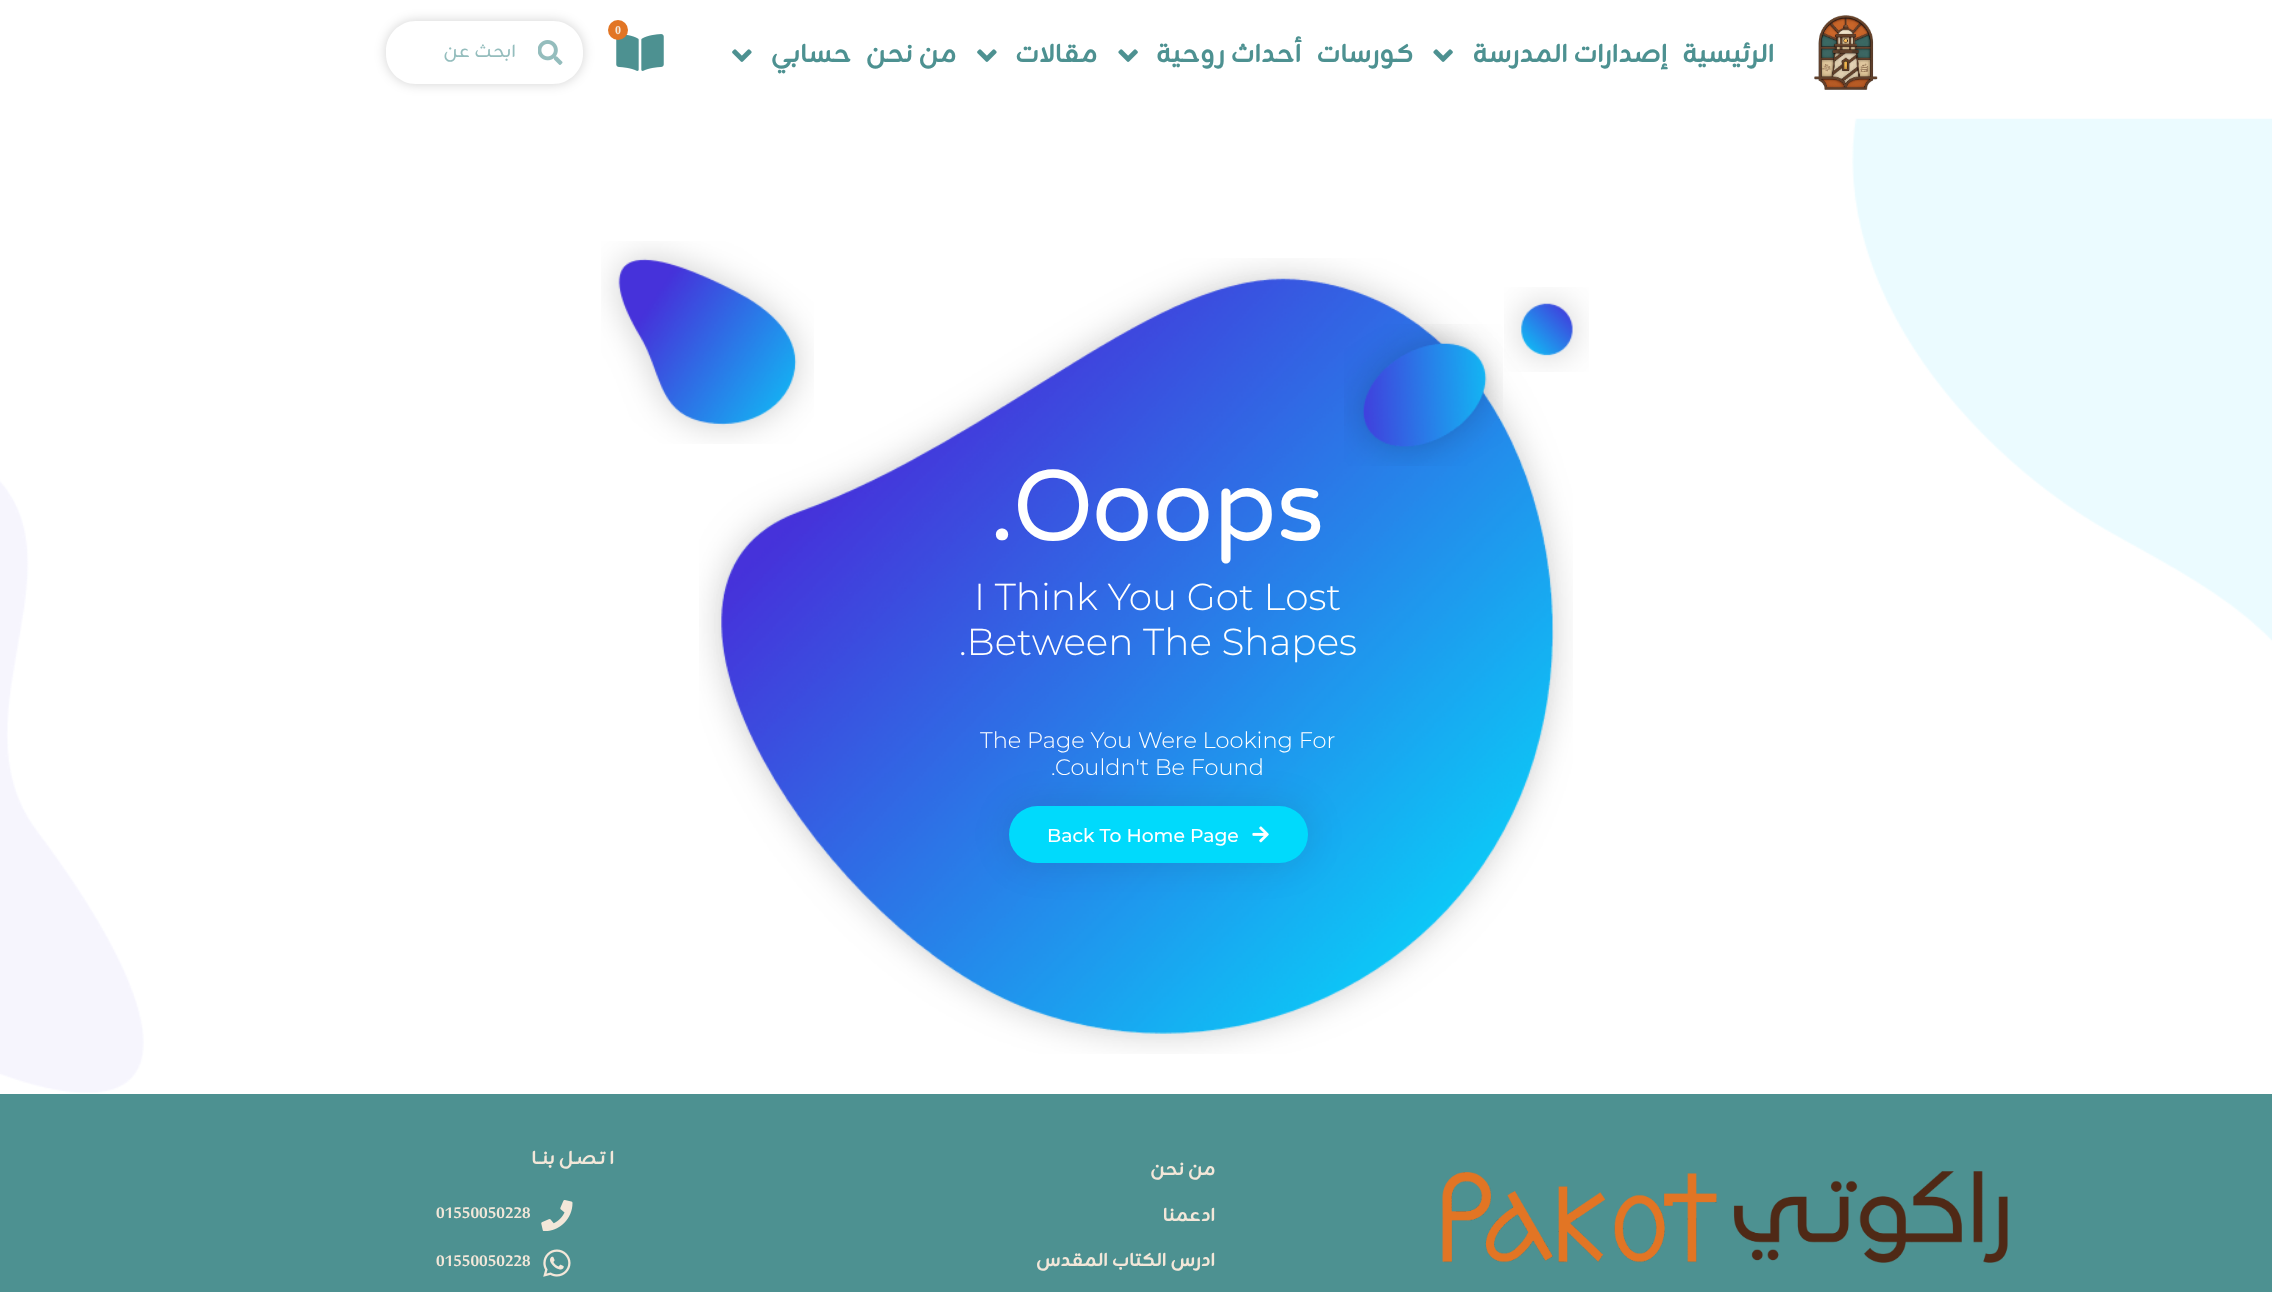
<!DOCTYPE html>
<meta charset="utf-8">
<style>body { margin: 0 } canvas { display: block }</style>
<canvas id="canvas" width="2272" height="1292"></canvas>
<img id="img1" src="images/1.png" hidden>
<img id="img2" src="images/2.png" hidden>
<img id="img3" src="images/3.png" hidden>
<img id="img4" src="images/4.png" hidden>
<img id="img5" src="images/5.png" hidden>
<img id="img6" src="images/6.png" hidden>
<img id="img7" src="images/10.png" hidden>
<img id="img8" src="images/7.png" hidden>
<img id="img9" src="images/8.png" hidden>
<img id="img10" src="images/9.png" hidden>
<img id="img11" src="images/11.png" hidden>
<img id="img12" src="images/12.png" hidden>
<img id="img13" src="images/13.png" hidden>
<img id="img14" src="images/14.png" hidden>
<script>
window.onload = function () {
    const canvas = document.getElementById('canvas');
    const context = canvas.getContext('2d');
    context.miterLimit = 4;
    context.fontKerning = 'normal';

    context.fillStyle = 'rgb(255, 255, 255)';
    context.fillRect(0, 0, 2272, 1292);
    context.drawImage(document.getElementById('img1'), 616, 34, 48, 37);
    context.fillStyle = 'rgb(226, 117, 36)';
    context.beginPath();
    context.arc(618, 30, 10, 0, 2 * Math.PI);
    context.fill();
    context.save();
    context.beginPath();
    context.moveTo(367, 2);
    context.lineTo(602, 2);
    context.lineTo(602, 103);
    context.lineTo(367, 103);
    context.closePath();
    context.moveTo(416, 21);
    context.lineTo(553, 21);
    context.bezierCurveTo(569.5, 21, 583, 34.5, 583, 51);
    context.lineTo(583, 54);
    context.bezierCurveTo(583, 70.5, 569.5, 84, 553, 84);
    context.lineTo(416, 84);
    context.bezierCurveTo(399.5, 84, 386, 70.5, 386, 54);
    context.lineTo(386, 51);
    context.bezierCurveTo(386, 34.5, 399.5, 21, 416, 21);
    context.closePath();
    context.clip('evenodd');
    context.fillStyle = 'rgba(0, 0, 0, 0.18)';
    context.filter = 'blur(6px)';
    context.beginPath();
    context.roundRect(386, 21, 197, 63, 30);
    context.fill();
    context.filter = 'none';
    context.restore();
    context.drawImage(document.getElementById('img2'), 538, 40, 25, 25);
    context.drawImage(document.getElementById('img3'), 732, 49, 20, 13);
    context.drawImage(document.getElementById('img3'), 977, 49, 20, 13);
    context.drawImage(document.getElementById('img4'), 1118, 49, 20, 13);
    context.drawImage(document.getElementById('img4'), 1433, 49, 20, 13);
    context.drawImage(document.getElementById('img5'), 1814, 15, 64, 75);
    context.drawImage(document.getElementById('img6'), 0, 118, 2272, 975);
    context.drawImage(document.getElementById('img7'), 699, 258, 874, 796);
    context.drawImage(document.getElementById('img8'), 601, 241, 213, 203);
    context.drawImage(document.getElementById('img9'), 1344, 324, 159, 142);
    context.drawImage(document.getElementById('img10'), 1504, 287, 85, 85);
    context.fillStyle = 'rgba(0, 0, 0, 0.1)';
    context.filter = 'blur(19px)';
    context.beginPath();
    context.roundRect(1009, 806, 299, 57, 28.5);
    context.fill();
    context.filter = 'none';
    context.fillStyle = 'rgb(0, 218, 252)';
    context.beginPath();
    context.roundRect(1009, 806, 299, 57, 28.5);
    context.fill();
    context.drawImage(document.getElementById('img11'), 1252, 826, 17, 17);
    context.fillStyle = 'rgb(77, 145, 145)';
    context.fillRect(0, 1094, 2272, 198);
    context.drawImage(document.getElementById('img12'), 541, 1200, 32, 31);
    context.drawImage(document.getElementById('img13'), 543, 1249, 28, 28);
    context.drawImage(document.getElementById('img14'), 1442, 1171, 566, 92);
    context.font = 'bold 12px Liberation Serif';
    context.fillStyle = 'rgb(243, 231, 217)';
    context.fillText('0', 615, 34);
    context.direction = 'rtl';
    context.font = '22.5px Zain';
    context.fillStyle = 'rgb(148, 189, 189)';
    context.fillText('ابحث عن', 516, 57);
    context.font = 'bold 31.25px Zain';
    context.fillStyle = 'rgb(77, 145, 145)';
    context.fillText('حسابي', 851, 62);
    context.fillText('من نحن', 956, 62);
    context.fillText('مقالات', 1097, 62);
    context.fillText('أحداث روحية', 1301, 62);
    context.fillText('كورسات', 1413, 62);
    context.fillText('إصدارات المدرسة', 1667, 62);
    context.fillText('الرئيسية', 1774, 62);
    context.direction = 'ltr';
    context.font = '100px Varela Round';
    context.fillStyle = 'rgb(255, 255, 255)';
    context.fillText('.Ooops', 989, 540);
    context.font = '300 37.5px Montserrat';
    context.fillText('I Think You Got Lost', 974, 610);
    context.fillText('.Between The Shapes', 959, 655);
    context.font = '300 22.5px Montserrat';
    context.fillText('The Page You Were Looking For', 980, 748);
    context.fillText('.Couldn\'t Be Found', 1051, 775);
    context.font = '500 18.75px Montserrat';
    context.fillText('Back To Home Page', 1047, 842);
    context.direction = 'rtl';
    context.font = 'bold 22.5px Zain';
    context.fillStyle = 'rgb(243, 231, 217)';
    context.fillText('ا تـصـل بنــا', 614, 1164);
    context.direction = 'ltr';
    context.font = 'bold 21.25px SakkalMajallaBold';
    context.fillText('01550050228', 436, 1218);
    context.fillText('01550050228', 436, 1266);
    context.direction = 'rtl';
    context.font = 'bold 22.5px Zain';
    context.fillText('من نحن', 1215, 1175);
    context.fillText('ادعمنا', 1215, 1221);
    context.fillText('ادرس الكتاب المقدس', 1215, 1266);
};
</script>
